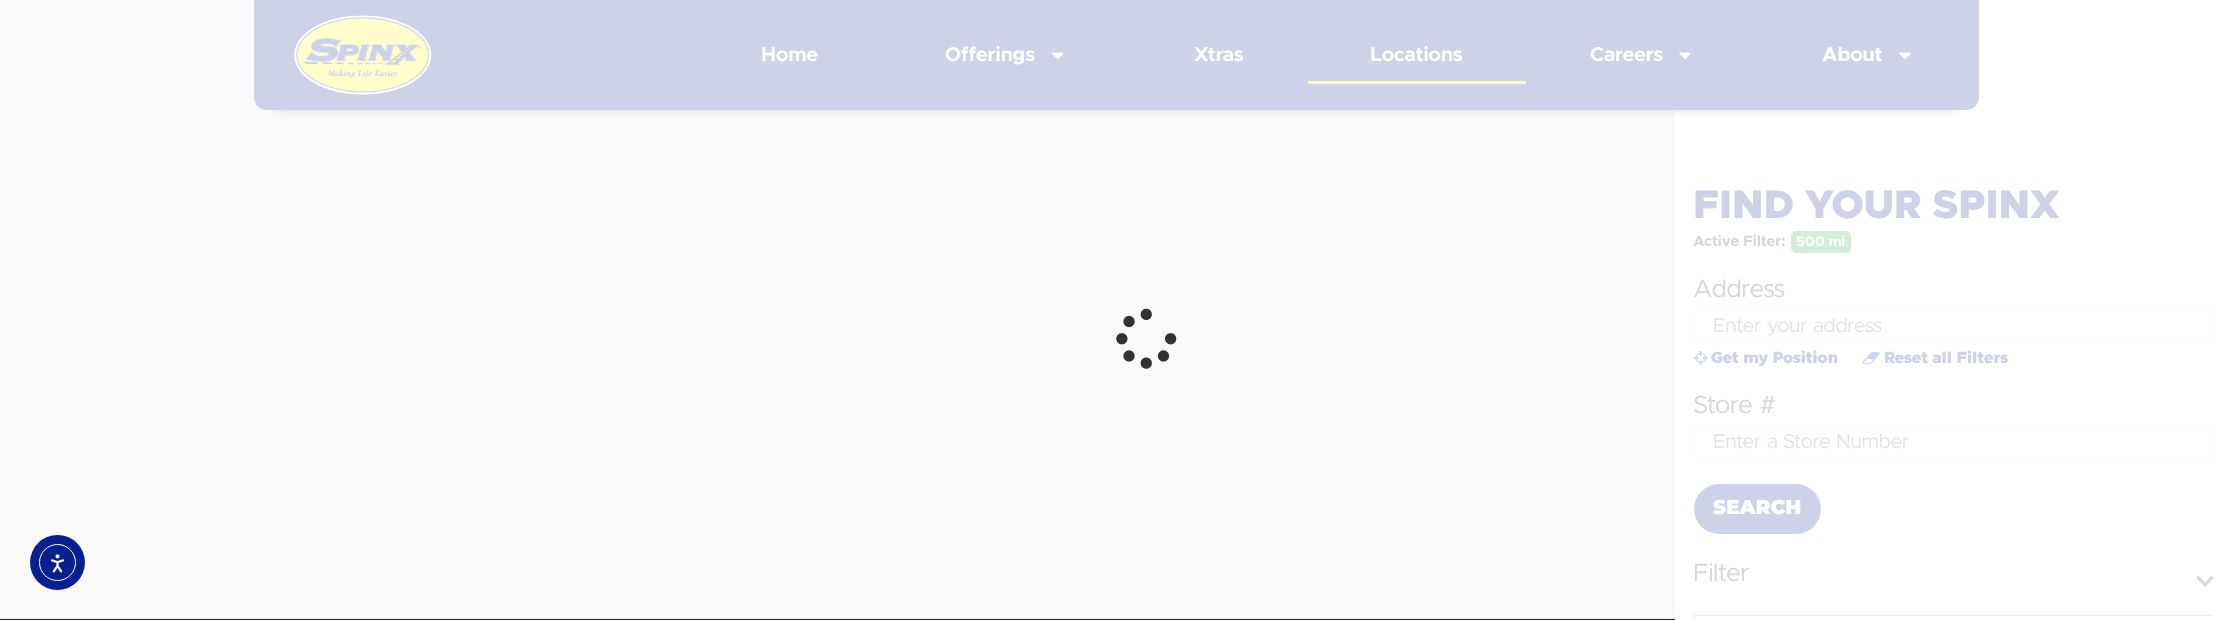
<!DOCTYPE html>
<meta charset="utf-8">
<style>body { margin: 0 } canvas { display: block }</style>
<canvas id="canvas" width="2232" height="620"></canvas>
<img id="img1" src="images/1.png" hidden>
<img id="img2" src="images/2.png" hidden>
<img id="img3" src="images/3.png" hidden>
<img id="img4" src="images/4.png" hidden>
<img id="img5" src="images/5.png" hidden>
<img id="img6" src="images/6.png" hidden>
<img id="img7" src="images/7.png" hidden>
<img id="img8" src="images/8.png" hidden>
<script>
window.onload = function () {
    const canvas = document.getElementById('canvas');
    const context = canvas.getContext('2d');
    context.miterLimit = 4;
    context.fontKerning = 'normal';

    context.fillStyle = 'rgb(250, 249, 249)';
    context.fillRect(0, 0, 2232, 620);
    context.fillStyle = 'rgb(255, 255, 255)';
    context.fillRect(1675, 0, 557, 620);
    context.fillStyle = 'rgb(205, 210, 232)';
    context.beginPath();
    context.roundRect(254, 0, 1725, 110, [0, 0, 13, 13]);
    context.fill();
    context.save();
    context.beginPath();
    context.rect(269, 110, 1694, 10);
    context.clip();
    context.fillStyle = 'rgba(204, 204, 204, 0.5)';
    context.filter = 'blur(5px)';
    context.beginPath();
    context.rect(276, 46, 1680, 65);
    context.fill();
    context.filter = 'none';
    context.restore();
    context.drawImage(document.getElementById('img1'), 292, 13, 142, 84);
    context.drawImage(document.getElementById('img2'), 1051, 52, 13, 7);
    context.fillStyle = 'rgb(255, 249, 204)';
    context.fillRect(1308, 81, 218, 3);
    context.drawImage(document.getElementById('img3'), 1679, 52, 12, 7);
    context.drawImage(document.getElementById('img3'), 1899, 52, 12, 7);
    context.fillStyle = 'rgb(7, 32, 141)';
    context.beginPath();
    context.arc(57.5, 562.5, 27.5, 0, 2 * Math.PI);
    context.fill();
    context.beginPath();
    context.arc(57.5, 562.5, 18, 0, 2 * Math.PI);
    context.strokeStyle = 'rgb(255, 255, 255)';
    context.stroke();
    context.drawImage(document.getElementById('img4'), 50, 554, 14, 19);
    context.drawImage(document.getElementById('img5'), 1116, 308, 61, 61);
    context.fillStyle = 'rgb(212, 237, 218)';
    context.beginPath();
    context.roundRect(1791, 231, 60, 22, 5);
    context.fill();
    context.strokeStyle = 'rgb(252, 252, 252)';
    context.strokeRect(1694.5, 310.5, 519, 32);
    context.drawImage(document.getElementById('img6'), 1693, 351, 15, 14);
    context.drawImage(document.getElementById('img7'), 1862, 352, 18, 12);
    context.strokeRect(1694.5, 426.5, 519, 32);
    context.fillStyle = 'rgb(205, 210, 232)';
    context.beginPath();
    context.roundRect(1694, 484, 127, 50, 25);
    context.fill();
    context.drawImage(document.getElementById('img8'), 2196, 576, 18, 11);
    context.fillStyle = 'rgb(236, 236, 236)';
    context.fillRect(1694, 615, 520, 1);
    context.fillStyle = 'rgb(252, 252, 252)';
    context.fillRect(2213, 615, 1, 3);
    context.fillRect(1694, 616, 520, 1);
    context.fillStyle = 'rgb(236, 236, 236)';
    context.fillRect(1694, 615, 1, 3);
    context.fillStyle = 'rgb(7, 32, 141)';
    context.fillRect(0, 619, 1675, 1);
    context.font = 'bold 20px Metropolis';
    context.fillStyle = 'rgb(255, 255, 255)';
    context.fillText('Home', 761, 61);
    context.fillText('Offerings', 945, 61);
    context.fillText('Xtras', 1194, 61);
    context.fillText('Locations', 1370, 61);
    context.fillText('Careers', 1590, 61);
    context.fillText('About', 1822, 61);
    context.font = '900 40px Metropolis';
    context.fillStyle = 'rgb(205, 210, 232)';
    context.fillText('FIND YOUR SPINX', 1693, 218);
    context.font = 'bold 15px Metropolis';
    context.fillStyle = 'rgb(214, 214, 214)';
    context.fillText('Active Filter:', 1693, 246);
    context.font = 'bold 14px Metropolis';
    context.fillStyle = 'rgb(255, 255, 255)';
    context.fillText('500 mi', 1796, 246);
    context.font = '25px Metropolis';
    context.fillStyle = 'rgb(214, 214, 214)';
    context.fillText('Address', 1693, 297);
    context.font = '20px Metropolis';
    context.fillStyle = 'rgb(227, 227, 227)';
    context.fillText('Enter your address', 1713, 332);
    context.font = '900 16.25px Metropolis';
    context.fillStyle = 'rgb(205, 210, 232)';
    context.fillText('Get my Position', 1711, 363);
    context.fillText('Reset all Filters', 1884, 363);
    context.font = '25px Metropolis';
    context.fillStyle = 'rgb(214, 214, 214)';
    context.fillText('Store #', 1693, 413);
    context.font = '20px Metropolis';
    context.fillStyle = 'rgb(227, 227, 227)';
    context.fillText('Enter a Store Number', 1713, 448);
    context.font = '900 20px Montserrat';
    context.fillStyle = 'rgb(255, 255, 255)';
    context.fillText('SEARCH', 1713, 514);
    context.font = '25px Metropolis';
    context.fillStyle = 'rgb(214, 214, 214)';
    context.fillText('Filter', 1693, 581);
};
</script>
